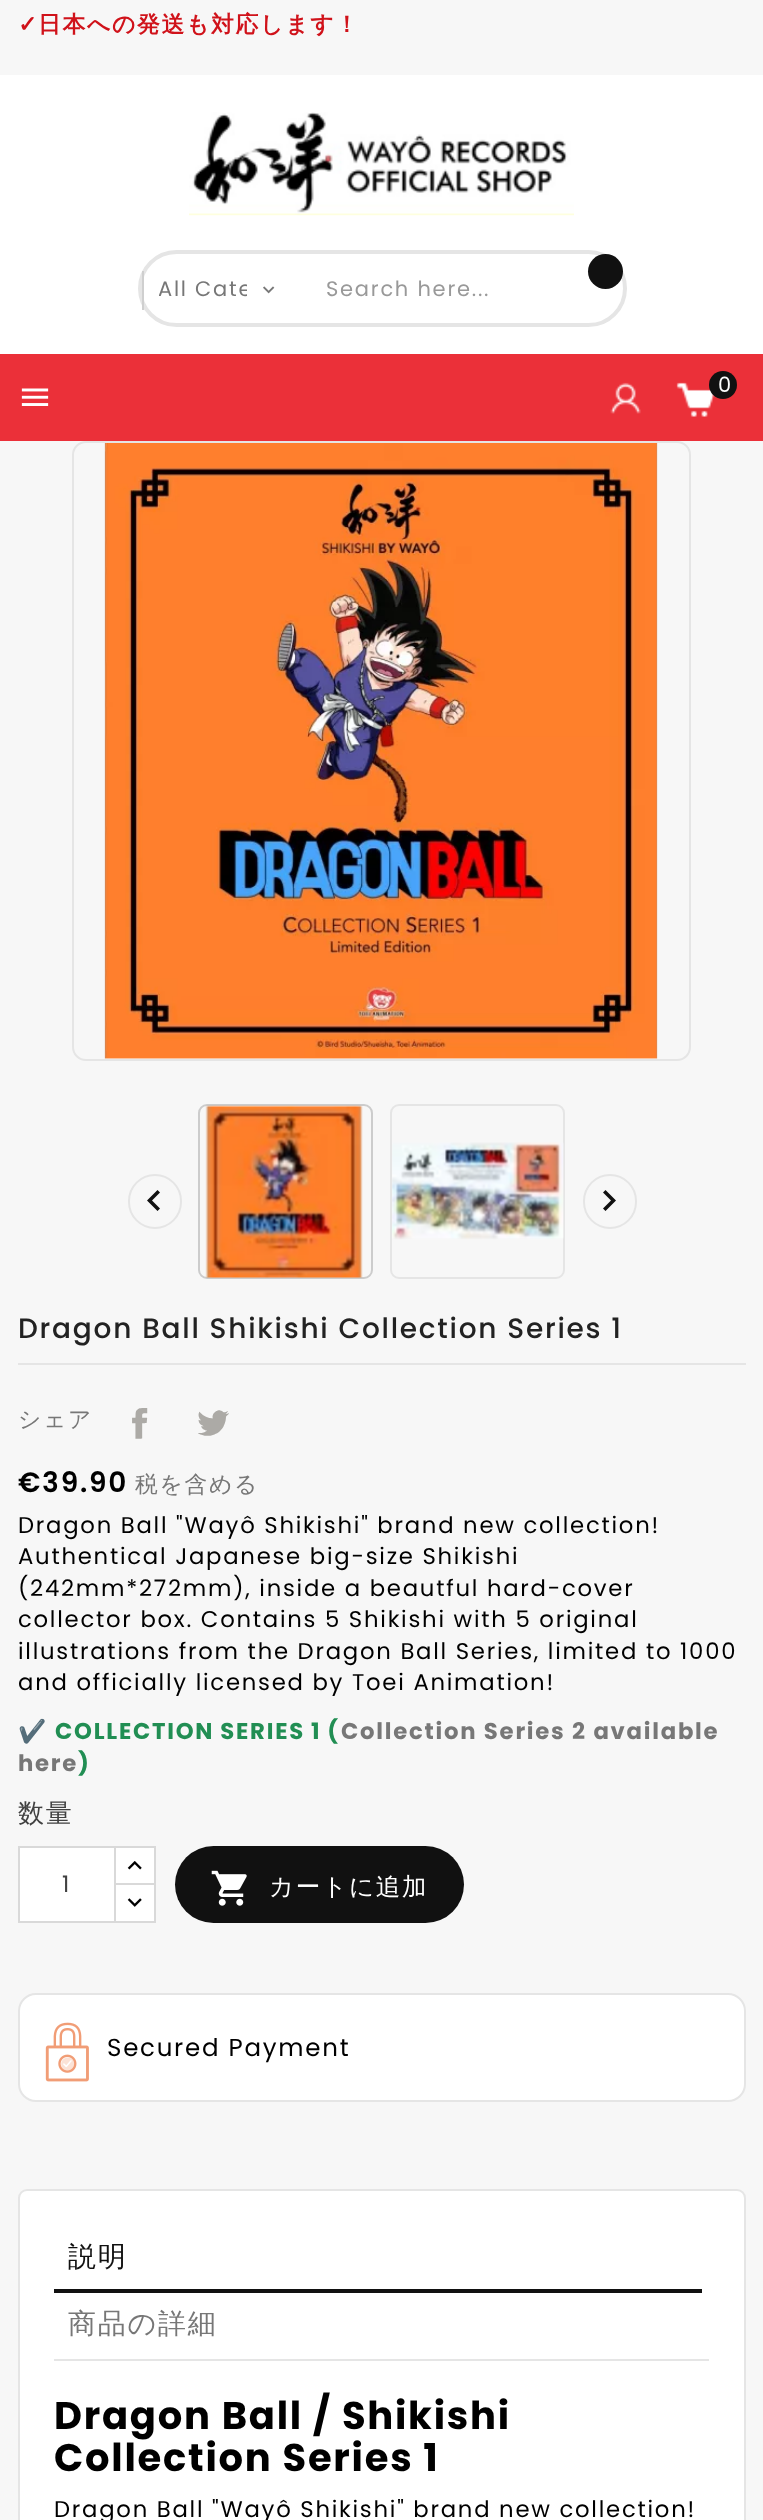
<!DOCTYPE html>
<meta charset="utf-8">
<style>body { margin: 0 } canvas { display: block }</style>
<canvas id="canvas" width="763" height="2520"></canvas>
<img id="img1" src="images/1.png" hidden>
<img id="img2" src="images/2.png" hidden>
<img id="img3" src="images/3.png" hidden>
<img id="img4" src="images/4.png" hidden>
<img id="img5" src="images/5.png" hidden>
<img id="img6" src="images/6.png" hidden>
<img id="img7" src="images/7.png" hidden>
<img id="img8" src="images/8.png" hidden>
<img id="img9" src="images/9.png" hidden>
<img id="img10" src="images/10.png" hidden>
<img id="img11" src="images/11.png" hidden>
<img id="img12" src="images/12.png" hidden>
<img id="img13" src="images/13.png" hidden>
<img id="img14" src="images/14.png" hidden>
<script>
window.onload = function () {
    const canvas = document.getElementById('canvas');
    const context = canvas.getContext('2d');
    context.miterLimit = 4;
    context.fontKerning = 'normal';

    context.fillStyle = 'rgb(247, 247, 247)';
    context.fillRect(0, 0, 763, 2520);
    context.fillStyle = 'rgb(255, 255, 255)';
    context.fillRect(0, 75, 763, 279);
    context.drawImage(document.getElementById('img1'), 189, 112, 385, 104);
    context.beginPath();
    context.roundRect(140, 252, 485, 73, 36.5);
    context.strokeStyle = 'rgb(229, 229, 229)';
    context.lineWidth = 4;
    context.stroke();
    context.fillStyle = 'rgb(207, 207, 207)';
    context.fillRect(142, 271, 2, 39);
    context.drawImage(document.getElementById('img2'), 263, 286, 12, 8);
    context.fillStyle = 'rgb(17, 17, 17)';
    context.beginPath();
    context.arc(605.5, 271.5, 17.5, 0, 2 * Math.PI);
    context.fill();
    context.fillStyle = 'rgb(235, 48, 57)';
    context.fillRect(0, 354, 763, 87);
    context.drawImage(document.getElementById('img3'), 21, 388, 28, 18);
    context.drawImage(document.getElementById('img4'), 610, 382, 31, 32);
    context.drawImage(document.getElementById('img5'), 676, 382, 39, 35);
    context.fillStyle = 'rgb(17, 17, 17)';
    context.beginPath();
    context.arc(723, 385, 14, 0, 2 * Math.PI);
    context.fill();
    context.beginPath();
    context.roundRect(73, 442, 617, 618, 13);
    context.lineWidth = 2;
    context.stroke();
    context.drawImage(document.getElementById('img6'), 104, 443, 554, 616);
    context.beginPath();
    context.roundRect(199, 1105, 173, 173, 8);
    context.strokeStyle = 'rgb(204, 204, 204)';
    context.stroke();
    context.drawImage(document.getElementById('img7'), 205, 1105, 158, 173);
    context.beginPath();
    context.roundRect(391, 1105, 173, 173, 8);
    context.strokeStyle = 'rgb(229, 229, 229)';
    context.stroke();
    context.drawImage(document.getElementById('img8'), 392, 1142, 172, 98);
    context.beginPath();
    context.roundRect(129, 1175, 52, 53, 26);
    context.stroke();
    context.beginPath();
    context.moveTo(160, 1192.5);
    context.lineTo(152, 1200.5);
    context.lineTo(160, 1208.5);
    context.lineTo(157.5, 1211);
    context.lineTo(147, 1200.5);
    context.lineTo(157.5, 1190);
    context.closePath();
    context.fill();
    context.beginPath();
    context.roundRect(584, 1175, 52, 53, 26);
    context.stroke();
    context.beginPath();
    context.moveTo(605.5, 1190);
    context.lineTo(616, 1200.5);
    context.lineTo(605.5, 1211);
    context.lineTo(603, 1208.5);
    context.lineTo(611, 1200.5);
    context.lineTo(603, 1192.5);
    context.closePath();
    context.fill();
    context.fillStyle = 'rgb(229, 229, 229)';
    context.fillRect(18, 1363, 728, 2);
    context.drawImage(document.getElementById('img9'), 132, 1408, 16, 31);
    context.drawImage(document.getElementById('img10'), 198, 1410, 31, 26);
    context.fillStyle = 'rgb(255, 255, 255)';
    context.fillRect(116, 1848, 38, 35);
    context.strokeStyle = 'rgb(217, 217, 217)';
    context.strokeRect(115, 1847, 40, 39);
    context.beginPath();
    context.rect(115, 1884, 40, 38);
    context.fill();
    context.stroke();
    context.beginPath();
    context.rect(19, 1847, 96, 75);
    context.fill();
    context.stroke();
    context.drawImage(document.getElementById('img11'), 127, 1861, 15, 9);
    context.drawImage(document.getElementById('img12'), 127, 1898, 15, 9);
    context.fillStyle = 'rgb(17, 17, 17)';
    context.beginPath();
    context.roundRect(175, 1846, 289, 77, 38.5);
    context.fill();
    context.drawImage(document.getElementById('img13'), 211, 1870, 36, 36);
    context.fillStyle = 'rgb(255, 255, 255)';
    context.beginPath();
    context.roundRect(19, 1994, 726, 107, 17);
    context.fill();
    context.strokeStyle = 'rgb(229, 229, 229)';
    context.stroke();
    context.drawImage(document.getElementById('img14'), 45, 2022, 44, 60);
    context.beginPath();
    context.roundRect(19, 2190, 726, 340, 8);
    context.fill();
    context.stroke();
    context.fillStyle = 'rgb(229, 229, 229)';
    context.fillRect(54, 2359, 655, 2);
    context.fillStyle = 'rgb(17, 17, 17)';
    context.fillRect(54, 2289, 648, 4);
    context.letterSpacing = '1.75px';
    context.font = 'bold 22.75px DejaVu Sans';
    context.fillStyle = 'rgb(208, 18, 26)';
    context.fillText('✓', 18, 32);
    context.font = 'bold 22.75px WenQuanYi Zen Hei';
    context.fillText('日本への発送も対応します！', 38, 32);
    context.save();
    context.beginPath();
    context.rect(159, 273, 88, 32);
    context.clip();
    context.font = '21px Poppins';
    context.fillStyle = 'rgb(119, 119, 119)';
    context.fillText('All Cate', 158, 296);
    context.restore();
    context.font = '21px Poppins';
    context.fillStyle = 'rgb(153, 153, 153)';
    context.fillText('Search here...', 326, 296);
    context.fillStyle = 'rgb(255, 255, 255)';
    context.fillText('0', 718, 392);
    context.font = '500 28px Poppins';
    context.fillStyle = 'rgb(34, 34, 34)';
    context.fillText('Dragon Ball Shikishi Collection Series 1', 18, 1338);
    context.font = '500 22.75px WenQuanYi Zen Hei';
    context.fillStyle = 'rgb(119, 119, 119)';
    context.fillText('シェア', 18, 1427);
    context.font = '600 28px Poppins';
    context.fillStyle = 'rgb(0, 0, 0)';
    context.fillText('€39.90', 18, 1492);
    context.font = '500 22.75px WenQuanYi Zen Hei';
    context.fillStyle = 'rgb(119, 119, 119)';
    context.fillText('税を含める', 135, 1492);
    context.font = '22.75px Poppins';
    context.fillStyle = 'rgb(0, 0, 0)';
    context.fillText('Dragon Ball "Wayô Shikishi" brand new collection!', 18, 1533);
    context.fillText('Authentical Japanese big-size Shikishi', 18, 1564);
    context.fillText('(242mm*272mm), inside a beautful hard-cover', 18, 1596);
    context.fillText('collector box. Contains 5 Shikishi with 5 original', 18, 1627);
    context.fillText('illustrations from the Dragon Ball Series, limited to 1000', 18, 1659);
    context.fillText('and officially licensed by Toei Animation!', 18, 1690);
    context.font = 'bold 22.75px Noto Color Emoji';
    context.fillStyle = 'rgb(33, 142, 83)';
    context.fillText('✔️', 18, 1739);
    context.wordSpacing = '-0.5px';
    context.font = 'bold 22.75px Poppins';
    context.fillText('COLLECTION SERIES 1 (', 55, 1739);
    context.wordSpacing = '0px';
    context.fillStyle = 'rgb(119, 119, 119)';
    context.fillText('Collection Series 2 available', 341, 1739);
    context.fillText('here', 18, 1771);
    context.fillStyle = 'rgb(33, 142, 83)';
    context.fillText(')', 78, 1771);
    context.font = '500 26px WenQuanYi Zen Hei';
    context.fillStyle = 'rgb(65, 65, 65)';
    context.fillText('数量', 18, 1822);
    context.font = '22.75px Poppins';
    context.fillText('1', 62, 1892);
    context.font = '500 24.5px WenQuanYi Zen Hei';
    context.fillStyle = 'rgb(255, 255, 255)';
    context.fillText('カートに追加', 269, 1895);
    context.font = '24.5px Poppins';
    context.fillStyle = 'rgb(0, 0, 0)';
    context.fillText('Secured Payment', 107, 2056);
    context.font = '500 28px WenQuanYi Zen Hei';
    context.fillStyle = 'rgb(17, 17, 17)';
    context.fillText('説明', 68, 2266);
    context.fillStyle = 'rgb(119, 119, 119)';
    context.fillText('商品の詳細', 68, 2333);
    context.font = 'bold 38.5px Poppins';
    context.fillStyle = 'rgb(0, 0, 0)';
    context.fillText('Dragon Ball / Shikishi', 54, 2429);
    context.fillText('Collection Series 1', 54, 2471);
    context.font = '22.75px Poppins';
    context.fillText('Dragon Ball "Wayô Shikishi" brand new collection!', 54, 2517);
};
</script>
